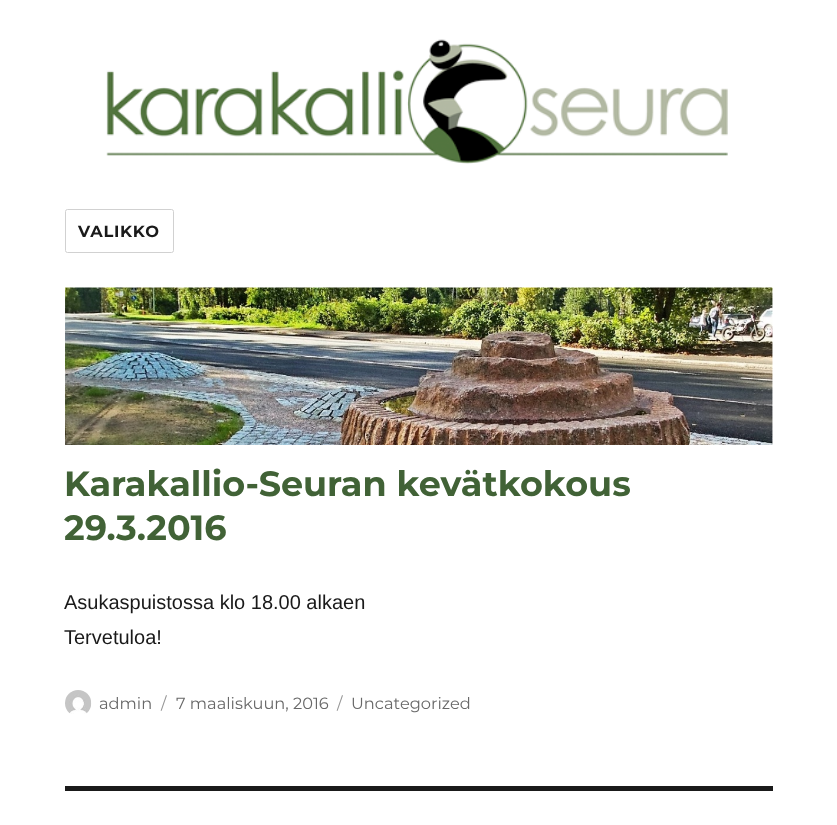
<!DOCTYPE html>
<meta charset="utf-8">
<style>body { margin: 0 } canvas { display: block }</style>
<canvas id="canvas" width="837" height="825"></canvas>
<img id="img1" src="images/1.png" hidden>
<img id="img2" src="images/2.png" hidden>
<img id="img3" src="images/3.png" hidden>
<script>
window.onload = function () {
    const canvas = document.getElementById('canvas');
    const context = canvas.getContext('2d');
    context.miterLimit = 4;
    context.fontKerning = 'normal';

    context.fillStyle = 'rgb(255, 255, 255)';
    context.fillRect(0, 0, 837, 825);
    context.drawImage(document.getElementById('img1'), 106, 39, 622, 125);
    context.beginPath();
    context.roundRect(65.5, 209.5, 108, 43, 2);
    context.strokeStyle = 'rgb(209, 209, 209)';
    context.stroke();
    context.drawImage(document.getElementById('img2'), 65, 287, 708, 158);
    context.drawImage(document.getElementById('img3'), 65, 690, 27, 24);
    context.fillStyle = 'rgb(26, 26, 26)';
    context.fillRect(65, 786, 708, 5);
    context.letterSpacing = '0.75px';
    context.font = '100 16.25px Montserrat';
    context.fillText('VALIKKO', 78, 237);
    context.letterSpacing = '0px';
    context.font = '100 35px Montserrat';
    context.fillStyle = 'rgb(65, 98, 54)';
    context.fillText('Karakallio-Seuran kevätkokous', 64, 496);
    context.fillText('29.3.2016', 64, 540);
    context.font = '20px Liberation Sans';
    context.fillStyle = 'rgb(26, 26, 26)';
    context.fillText('Asukaspuistossa klo 18.00 alkaen', 64, 609);
    context.fillText('Tervetuloa!', 64, 644);
    context.font = '100 16.25px "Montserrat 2"';
    context.fillStyle = 'rgb(104, 104, 104)';
    context.fillText('admin', 99, 709);
    context.fillStyle = 'rgb(149, 149, 149)';
    context.fillText('/', 161, 709);
    context.fillStyle = 'rgb(104, 104, 104)';
    context.fillText('7 maaliskuun, 2016', 176, 709);
    context.fillStyle = 'rgb(149, 149, 149)';
    context.fillText('/', 337, 709);
    context.fillStyle = 'rgb(104, 104, 104)';
    context.fillText('Uncategorized', 351, 709);
};
</script>
